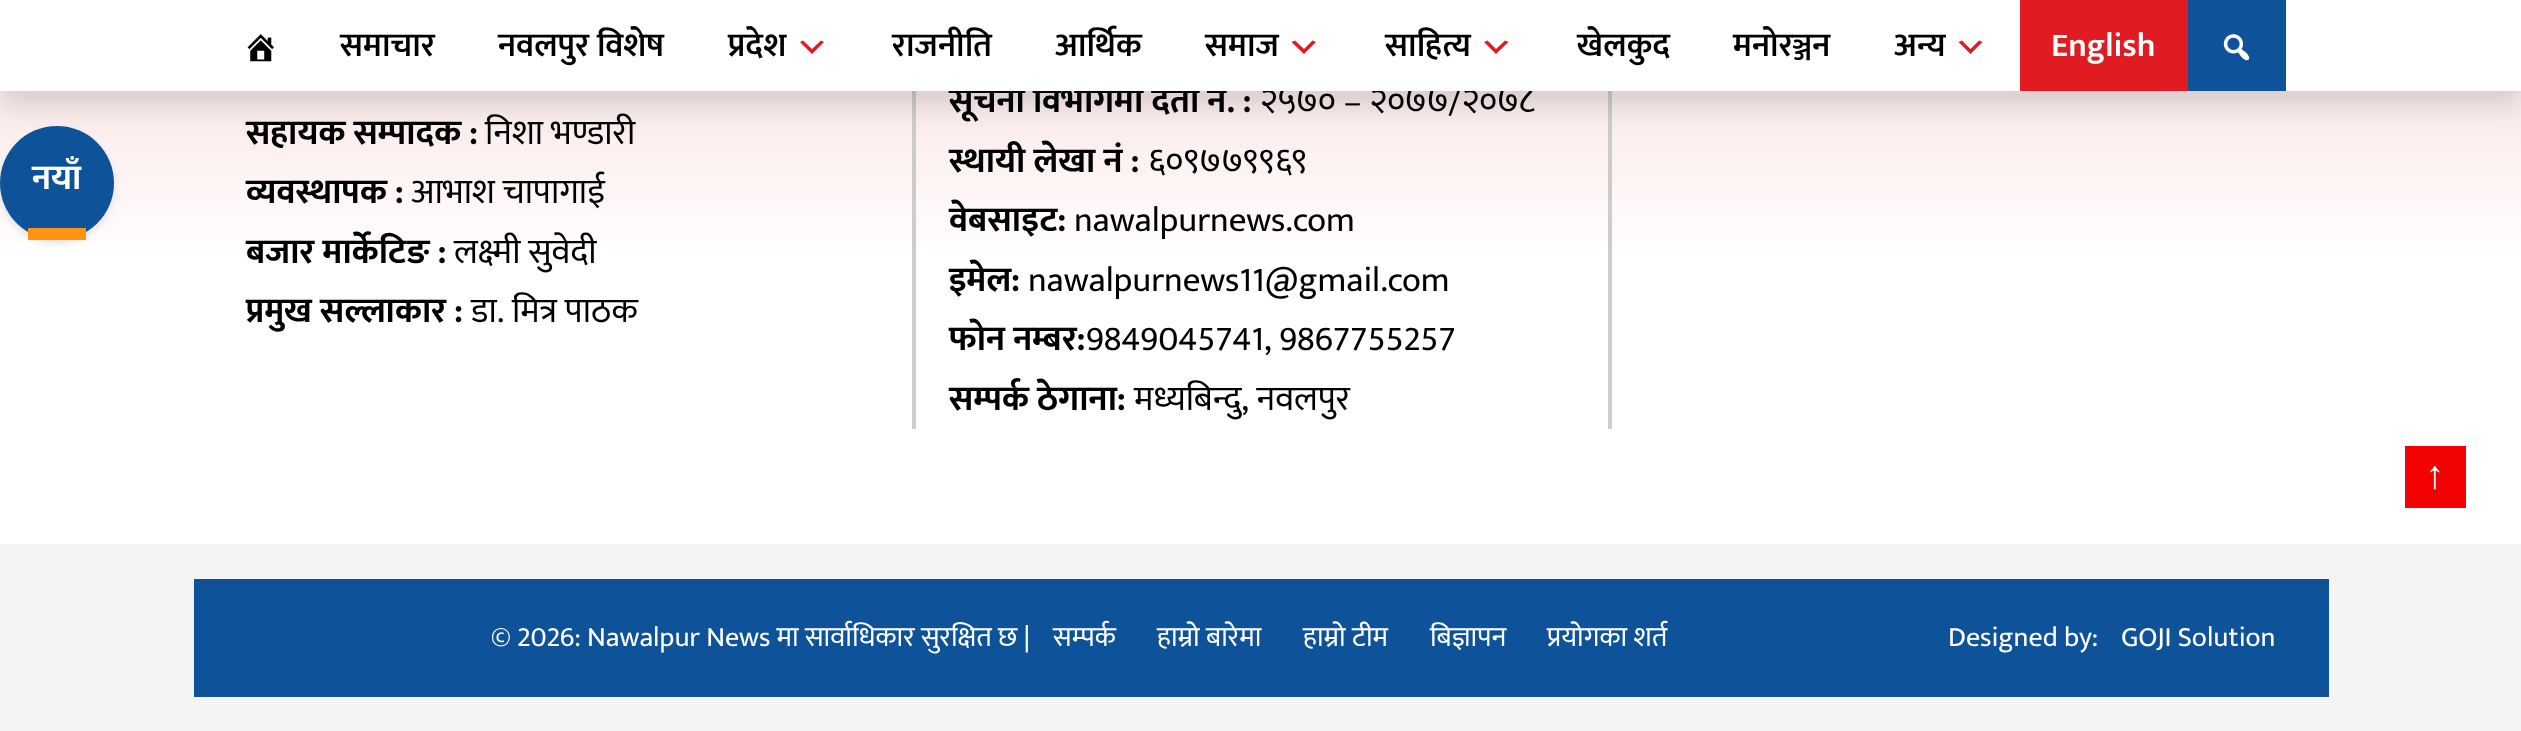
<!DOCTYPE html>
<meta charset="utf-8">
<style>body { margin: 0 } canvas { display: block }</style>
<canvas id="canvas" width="2521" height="731"></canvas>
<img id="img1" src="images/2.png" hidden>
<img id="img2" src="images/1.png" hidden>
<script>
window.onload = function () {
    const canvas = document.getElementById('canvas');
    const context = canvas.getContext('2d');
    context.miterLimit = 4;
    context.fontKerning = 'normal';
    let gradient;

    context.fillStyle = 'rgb(255, 255, 255)';
    context.fillRect(0, 0, 2521, 731);
    gradient = context.createLinearGradient(1261, -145, 1261, 544);
    gradient.addColorStop(0.4, 'rgb(253, 238, 238)');
    gradient.addColorStop(0.6, 'rgb(255, 255, 255)');
    context.fillStyle = gradient;
    context.fillRect(0, 91, 2521, 157);
    context.fillStyle = 'rgb(204, 204, 204)';
    context.fillRect(1608, 91, 4, 338);
    context.fillRect(912, 91, 4, 338);
    context.fillStyle = 'rgba(0, 0, 0, 0.15)';
    context.filter = 'blur(14px)';
    context.beginPath();
    context.rect(0, 14, 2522, 91);
    context.fill();
    context.filter = 'none';
    context.fillStyle = 'rgba(0, 0, 0, 0.11)';
    context.filter = 'blur(3.5px)';
    context.beginPath();
    context.roundRect(0, 130, 114, 113, 56.5);
    context.fill();
    context.filter = 'none';
    context.fillStyle = 'rgb(14, 83, 154)';
    context.beginPath();
    context.arc(57, 183, 57, 0, 2 * Math.PI);
    context.fill();
    context.fillStyle = 'rgb(254, 148, 18)';
    context.fillRect(28, 228, 58, 12);
    context.fillStyle = 'rgb(243, 2, 2)';
    context.fillRect(2405, 446, 61, 62);
    context.fillStyle = 'rgb(244, 244, 244)';
    context.fillRect(0, 544, 2521, 187);
    context.fillStyle = 'rgb(14, 83, 154)';
    context.fillRect(194, 579, 2135, 118);
    context.font = 'bold 35px Mukta';
    context.fillStyle = 'rgb(255, 255, 255)';
    context.fillText('नयाँ', 32, 189);
    context.fillStyle = 'rgb(0, 0, 0)';
    context.fillText('सहायक सम्पादक :', 246, 144);
    context.font = '35px Mukta';
    context.fillText('निशा भण्डारी', 485, 144);
    context.font = 'bold 35px Mukta';
    context.fillText('व्यवस्थापक :', 246, 203);
    context.font = '35px Mukta';
    context.fillText('आभाश चापागाई', 411, 203);
    context.font = 'bold 35px Mukta';
    context.fillText('बजार मार्केटिङ :', 246, 263);
    context.font = '35px Mukta';
    context.fillText('लक्ष्मी सुवेदी', 454, 263);
    context.font = 'bold 35px Mukta';
    context.fillText('प्रमुख सल्लाकार :', 246, 322);
    context.font = '35px Mukta';
    context.fillText('डा. मित्र पाठक', 471, 322);
    context.font = 'bold 35px Mukta';
    context.fillText('सूचना विभागमा दर्ता नं. :', 949, 112);
    context.font = '35px Mukta';
    context.fillText('२५७० – २०७७/२०७८', 1260, 112);
    context.fillStyle = 'rgb(255, 255, 255)';
    context.fillRect(0, 0, 2521, 91);
    context.fillStyle = 'rgb(14, 83, 154)';
    context.fillRect(2188, 0, 98, 91);
    context.drawImage(document.getElementById('img1'), 2223, 34, 27, 27);
    context.fillStyle = 'rgb(225, 27, 34)';
    context.fillRect(2020, 0, 168, 91);
    context.font = '600 33.5px Mukta';
    context.fillStyle = 'rgb(255, 255, 255)';
    context.fillText('English', 2051, 56);
    context.fillStyle = 'rgb(225, 27, 34)';
    context.beginPath();
    context.moveTo(1962, 40.5);
    context.lineTo(1970.5, 49);
    context.lineTo(1979, 40.5);
    context.lineTo(1982.5, 42);
    context.lineTo(1970.5, 54);
    context.lineTo(1958.5, 42);
    context.closePath();
    context.fill();
    context.fillStyle = 'rgb(0, 0, 0)';
    context.fillText('अन्य', 1894, 56);
    context.fillText('मनोरञ्जन', 1733, 56);
    context.fillText('खेलकुद', 1577, 56);
    context.fillStyle = 'rgb(225, 27, 34)';
    context.beginPath();
    context.moveTo(1487.5, 40.5);
    context.lineTo(1496, 49);
    context.lineTo(1505, 40.5);
    context.lineTo(1508.5, 42);
    context.lineTo(1496, 54);
    context.lineTo(1484, 42);
    context.closePath();
    context.fill();
    context.fillStyle = 'rgb(0, 0, 0)';
    context.fillText('साहित्य', 1385, 56);
    context.fillStyle = 'rgb(225, 27, 34)';
    context.beginPath();
    context.moveTo(1295, 40.5);
    context.lineTo(1304, 49);
    context.lineTo(1312.5, 40.5);
    context.lineTo(1316, 42);
    context.lineTo(1304, 54);
    context.lineTo(1291.5, 42);
    context.closePath();
    context.fill();
    context.fillStyle = 'rgb(0, 0, 0)';
    context.fillText('समाज', 1205, 56);
    context.fillText('आर्थिक', 1055, 56);
    context.fillText('राजनीति', 892, 56);
    context.fillStyle = 'rgb(225, 27, 34)';
    context.beginPath();
    context.moveTo(803, 40.5);
    context.lineTo(812, 49);
    context.lineTo(821, 40.5);
    context.lineTo(824, 42);
    context.lineTo(812, 54);
    context.lineTo(800, 42);
    context.closePath();
    context.fill();
    context.fillStyle = 'rgb(0, 0, 0)';
    context.fillText('प्रदेश', 728, 56);
    context.fillText('नवलपुर विशेष', 498, 56);
    context.fillText('समाचार', 340, 56);
    context.drawImage(document.getElementById('img2'), 247, 34, 27, 28);
    context.font = 'bold 35px Mukta';
    context.fillText('स्थायी लेखा नं :', 949, 172);
    context.font = '35px Mukta';
    context.fillText('६०९७७९९६९', 1148, 172);
    context.font = 'bold 35px Mukta';
    context.fillText('वेबसाइट:', 949, 231);
    context.font = '35px Mukta';
    context.fillText('nawalpurnews.com', 1074, 231);
    context.font = 'bold 35px Mukta';
    context.fillText('इमेल:', 949, 291);
    context.font = '35px Mukta';
    context.fillText('nawalpurnews11@gmail.com', 1028, 291);
    context.font = 'bold 35px Mukta';
    context.fillText('फोन नम्बर:', 949, 350);
    context.font = '35px Mukta';
    context.fillText('9849045741, 9867755257', 1086, 350);
    context.font = 'bold 35px Mukta';
    context.fillText('सम्पर्क ठेगाना:', 949, 410);
    context.font = '35px Mukta';
    context.fillText('मध्यबिन्दु, नवलपुर', 1134, 410);
    context.font = '39px Liberation Sans';
    context.fillStyle = 'rgb(255, 255, 255)';
    context.fillText('↑', 2425, 488);
    context.font = '28px Mukta';
    context.fillText('© 2026: Nawalpur News मा सार्वाधिकार सुरक्षित छ |', 491, 646);
    context.fillText('सम्पर्क', 1053, 646);
    context.fillText('हाम्रो बारेमा', 1157, 646);
    context.fillText('हाम्रो टीम', 1303, 646);
    context.fillText('बिज्ञापन', 1430, 646);
    context.fillText('प्रयोगका शर्त', 1547, 646);
    context.fillText('Designed by:', 1948, 646);
    context.fillText('GOJI Solution', 2121, 646);
};
</script>
